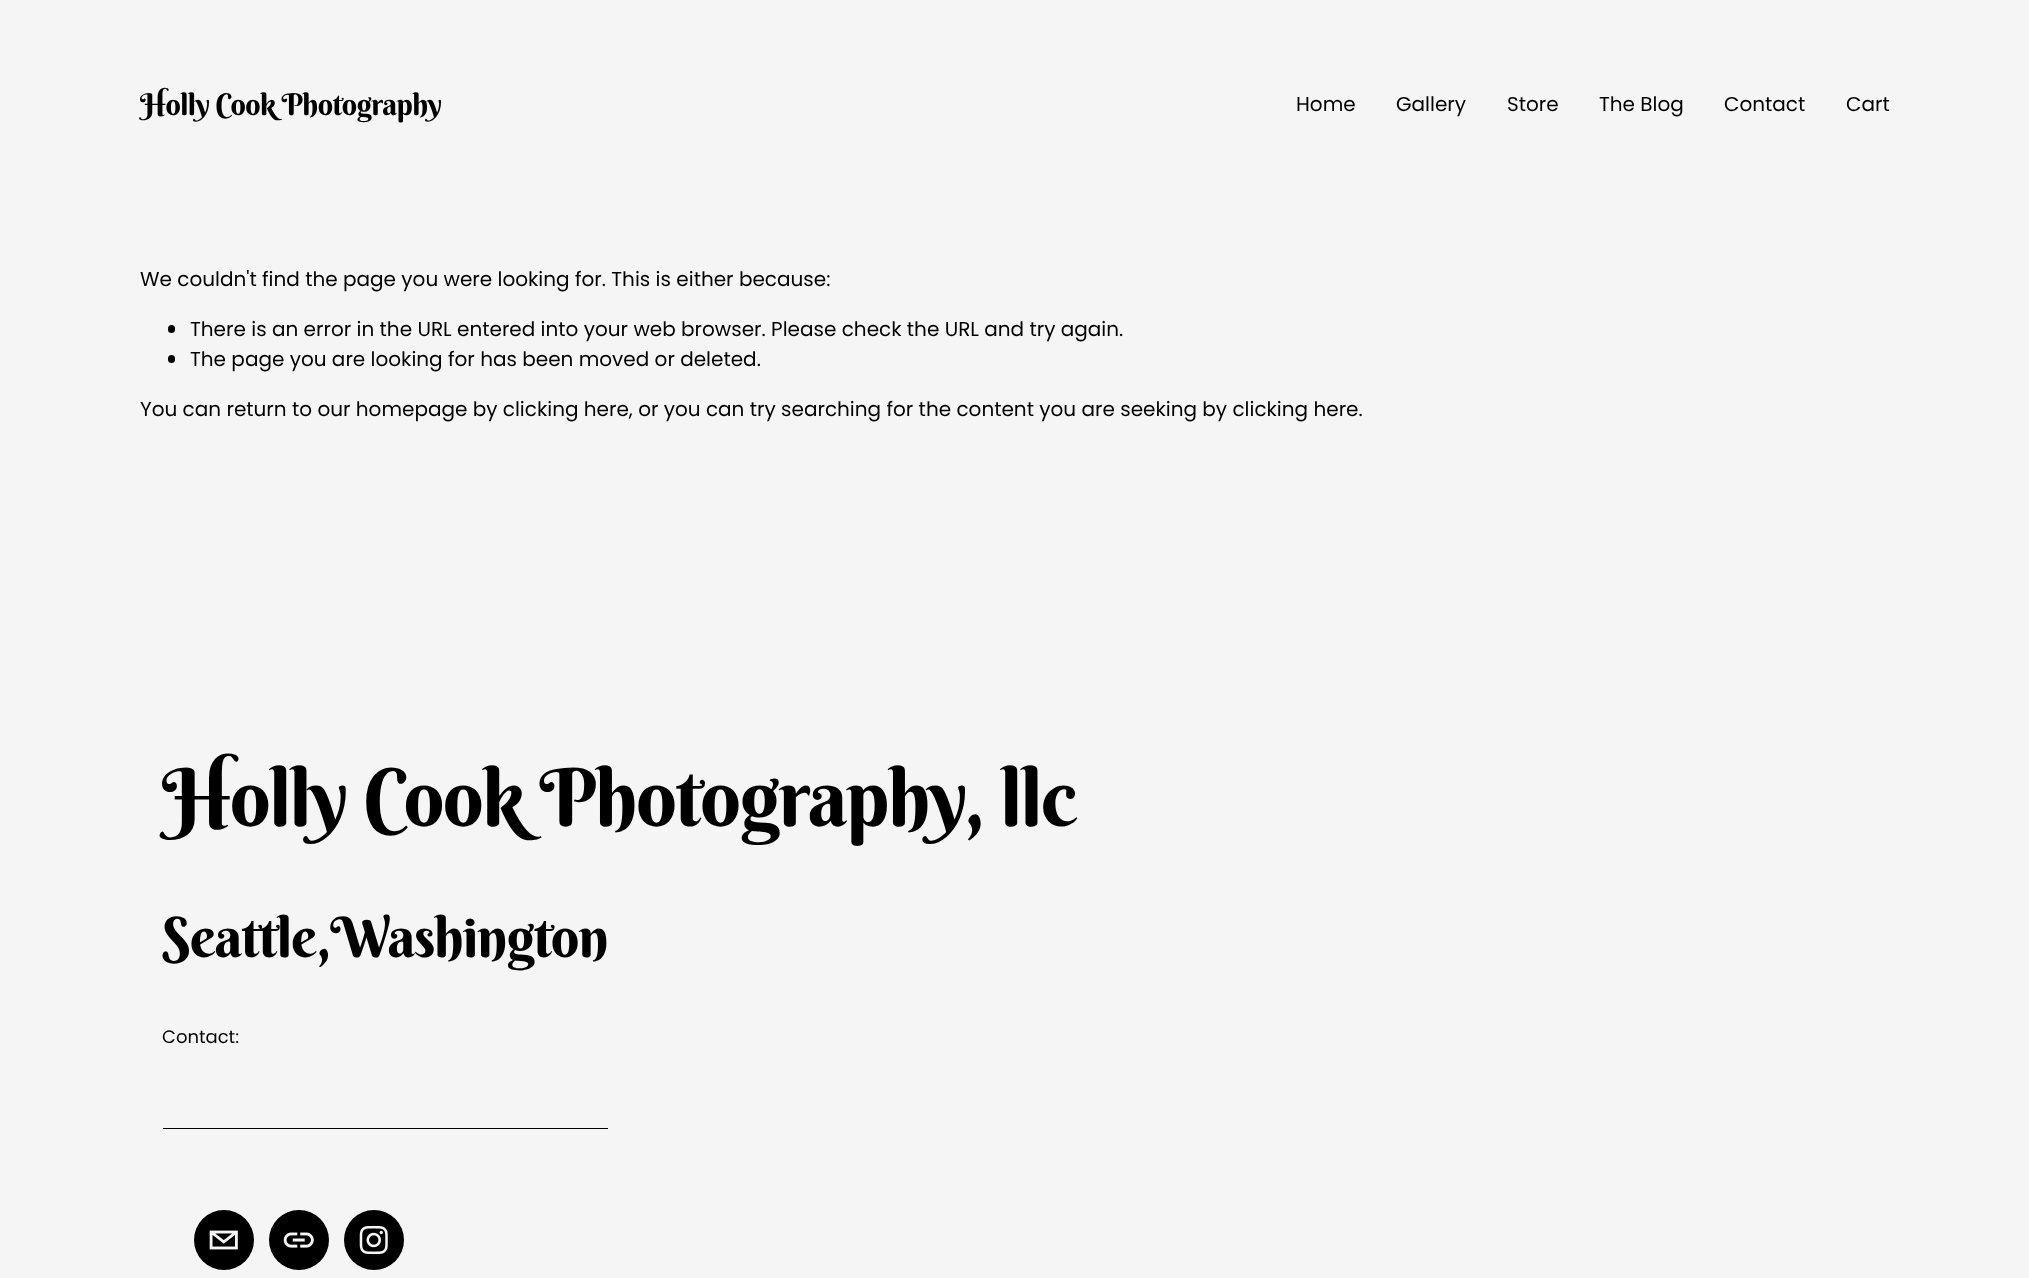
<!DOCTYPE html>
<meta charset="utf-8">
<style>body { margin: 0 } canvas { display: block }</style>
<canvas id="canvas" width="2029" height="1278"></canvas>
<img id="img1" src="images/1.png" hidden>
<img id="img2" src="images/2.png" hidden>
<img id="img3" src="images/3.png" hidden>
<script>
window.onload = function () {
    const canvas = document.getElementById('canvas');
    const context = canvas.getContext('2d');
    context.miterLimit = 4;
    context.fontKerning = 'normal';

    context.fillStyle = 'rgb(245, 245, 245)';
    context.fillRect(0, 0, 2029, 1278);
    context.fillStyle = 'rgb(0, 0, 0)';
    context.beginPath();
    context.roundRect(168, 325, 7, 8, 3.5);
    context.fill();
    context.beginPath();
    context.roundRect(168, 355, 7, 8, 3.5);
    context.fill();
    context.fillRect(163, 1128, 445, 1);
    context.beginPath();
    context.arc(224, 1240, 30, 0, 2 * Math.PI);
    context.fill();
    context.drawImage(document.getElementById('img1'), 209, 1230, 29, 20);
    context.beginPath();
    context.arc(299, 1240, 30, 0, 2 * Math.PI);
    context.fill();
    context.drawImage(document.getElementById('img2'), 283, 1232, 31, 16);
    context.beginPath();
    context.arc(374, 1240, 30, 0, 2 * Math.PI);
    context.fill();
    context.drawImage(document.getElementById('img3'), 359, 1225, 29, 30);
    context.letterSpacing = '-0.6px';
    context.font = '30px Berkshire Swash';
    context.fillText('Holly Cook Photography', 140, 115);
    context.letterSpacing = '0px';
    context.font = '20px Poppins';
    context.fillText('Home', 1296, 111);
    context.fillText('Gallery', 1396, 111);
    context.fillText('Store', 1507, 111);
    context.fillText('The Blog', 1599, 111);
    context.fillText('Contact', 1724, 111);
    context.fillText('Cart', 1846, 111);
    context.fillText('We couldn\'t find the page you were looking for. This is either because:', 140, 286);
    context.fillText('There is an error in the URL entered into your web browser. Please check the URL and try again.', 190, 336);
    context.fillText('The page you are looking for has been moved or deleted.', 190, 366);
    context.fillText('You can return to our homepage by clicking here, or you can try searching for the content you are seeking by clicking here.', 140, 416);
    context.letterSpacing = '-1.6px';
    context.font = '80px Berkshire Swash';
    context.fillText('Holly Cook Photography, llc', 162, 826);
    context.letterSpacing = '-1.1px';
    context.font = '56px Berkshire Swash';
    context.fillText('Seattle,Washington', 162, 957);
    context.letterSpacing = '0px';
    context.font = '18px Poppins';
    context.fillText('Contact:', 162, 1043);
};
</script>
